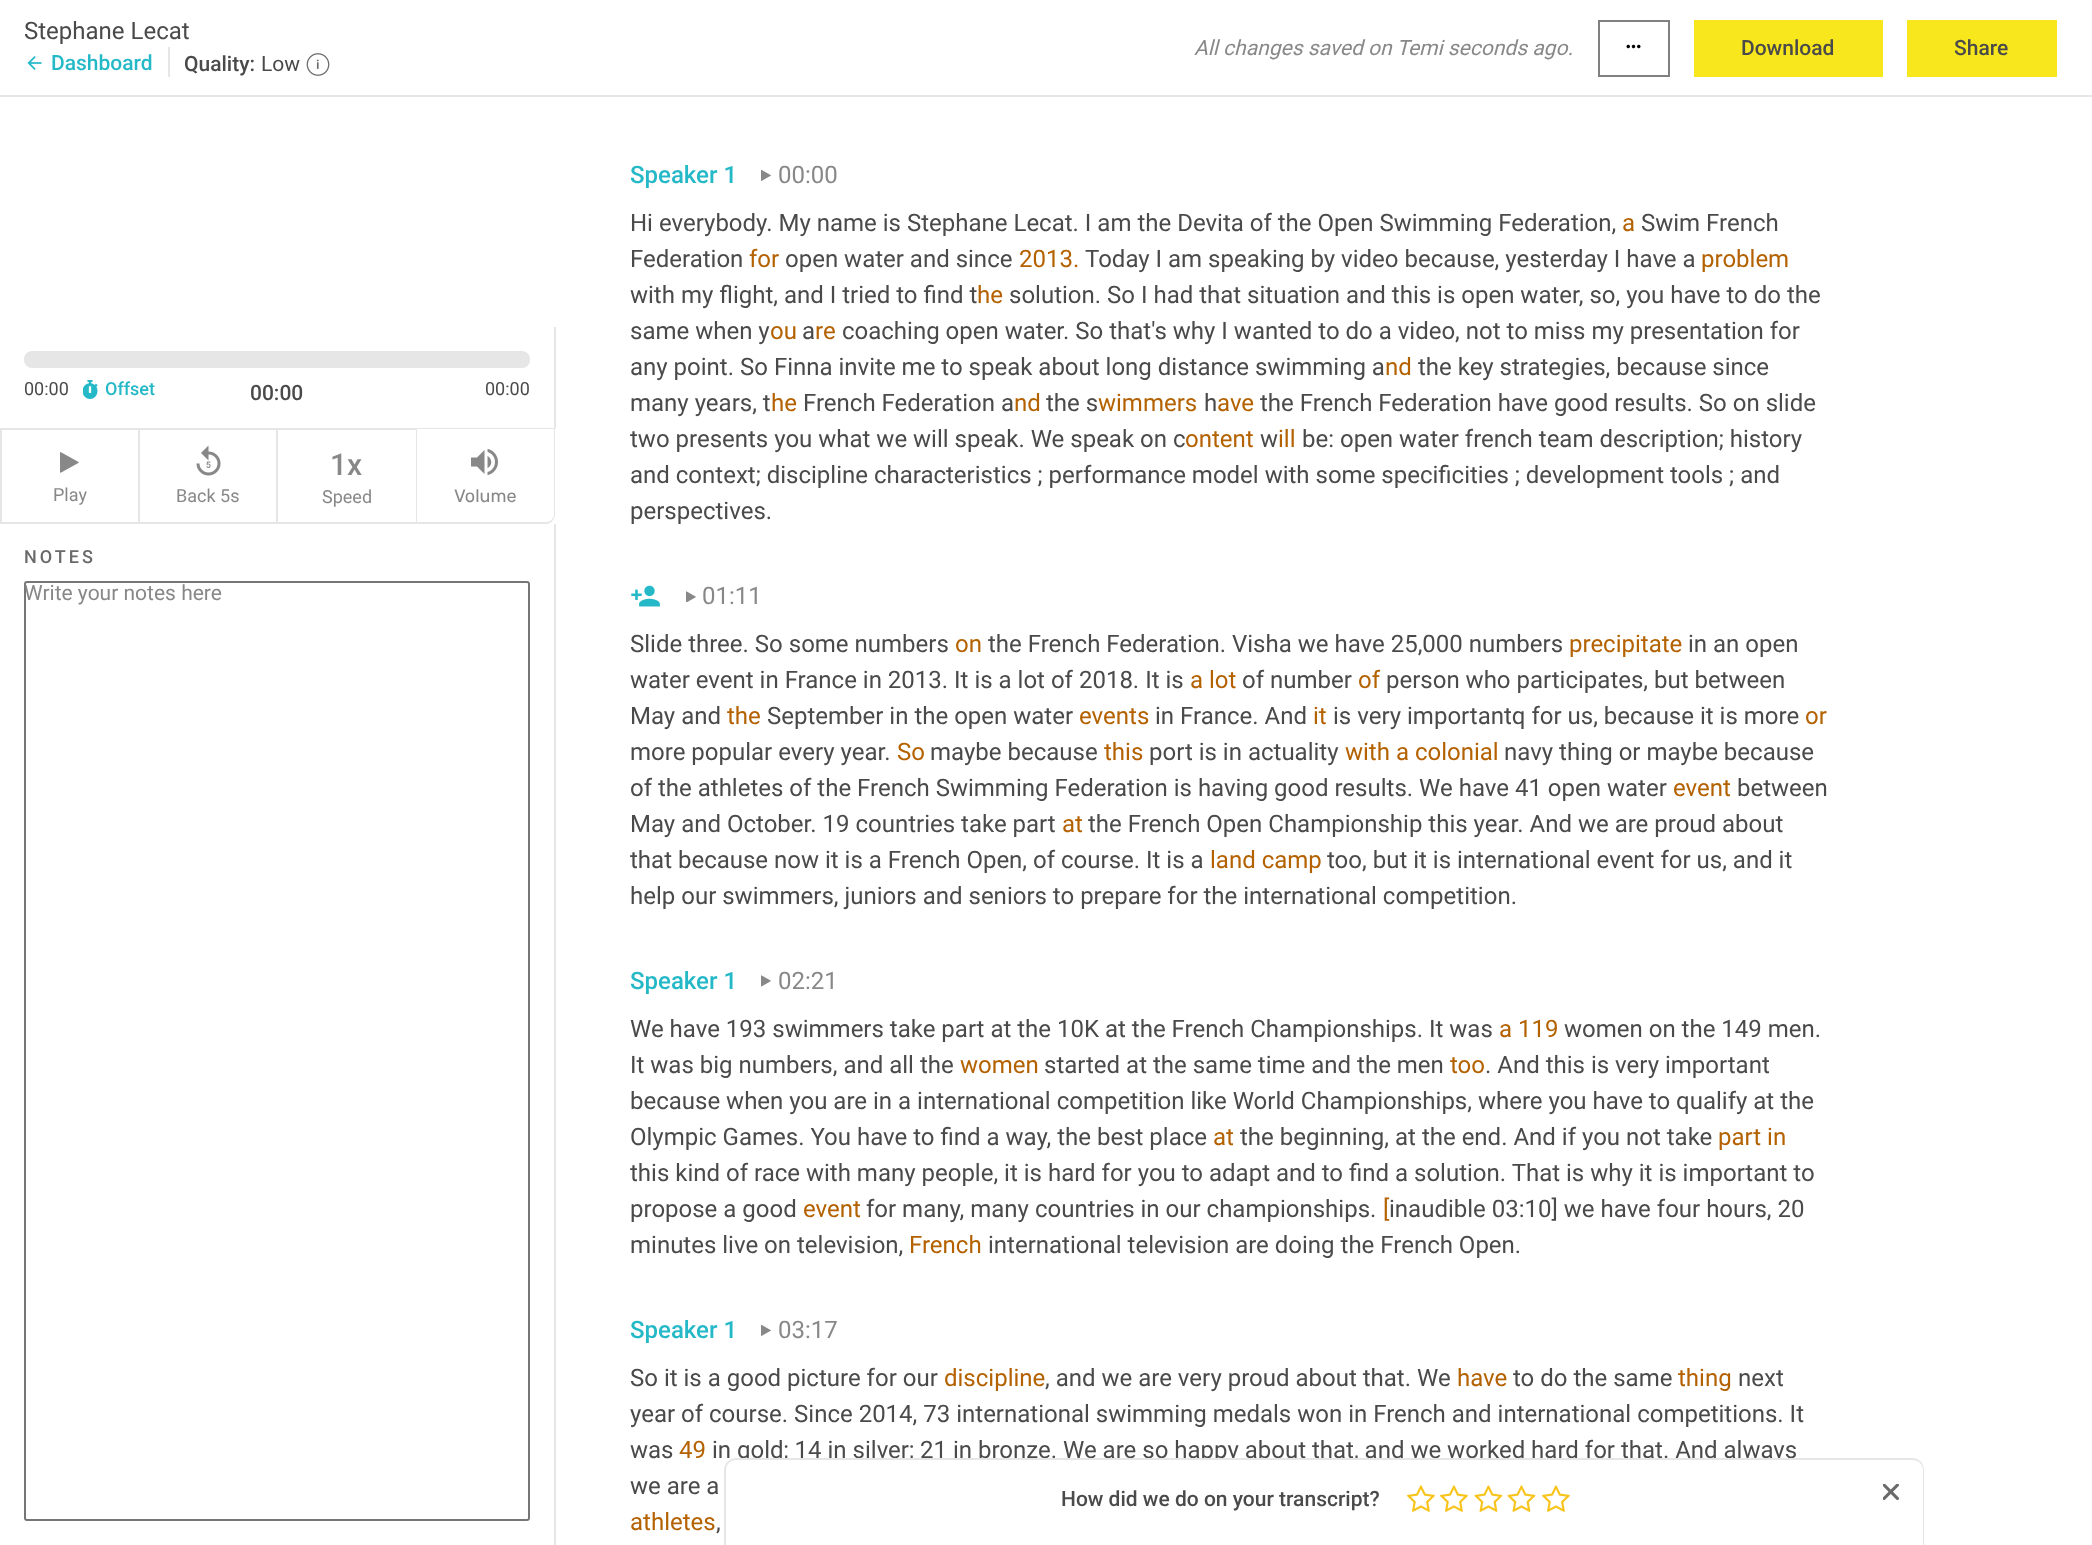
<!DOCTYPE html>
<meta charset="utf-8">
<style>body { margin: 0 } canvas { display: block }</style>
<canvas id="canvas" width="2092" height="1545"></canvas>
<img id="img1" src="images/1.png" hidden>
<img id="img2" src="images/2.png" hidden>
<img id="img3" src="images/3.png" hidden>
<img id="img4" src="images/4.png" hidden>
<img id="img5" src="images/5.png" hidden>
<img id="img6" src="images/6.png" hidden>
<img id="img7" src="images/7.png" hidden>
<img id="img8" src="images/8.png" hidden>
<img id="img9" src="images/9.png" hidden>
<img id="img10" src="images/10.png" hidden>
<img id="img11" src="images/11.png" hidden>
<img id="img12" src="images/12.png" hidden>
<img id="img13" src="images/13.png" hidden>
<img id="img14" src="images/14.png" hidden>
<script>
window.onload = function () {
    const canvas = document.getElementById('canvas');
    const context = canvas.getContext('2d');
    context.miterLimit = 4;
    context.fontKerning = 'normal';

    context.fillStyle = 'rgb(255, 255, 255)';
    context.fillRect(0, 0, 2092, 1545);
    context.fillStyle = 'rgb(230, 230, 230)';
    context.fillRect(0, 95, 2092, 2);
    context.drawImage(document.getElementById('img1'), 27, 56, 15, 14);
    context.fillRect(168, 47, 2, 30);
    context.drawImage(document.getElementById('img2'), 306, 53, 24, 23);
    context.strokeStyle = 'rgb(128, 128, 128)';
    context.lineWidth = 2;
    context.strokeRect(1599, 21, 70, 55);
    context.drawImage(document.getElementById('img3'), 1626, 44, 15, 5);
    context.fillStyle = 'rgb(248, 231, 28)';
    context.fillRect(1694, 20, 189, 57);
    context.fillRect(1907, 20, 150, 57);
    context.fillStyle = 'rgb(230, 230, 230)';
    context.fillRect(554, 327, 2, 101);
    context.beginPath();
    context.roundRect(24, 351, 506, 17, 8);
    context.fill();
    context.drawImage(document.getElementById('img4'), 83, 380, 15, 19);
    context.strokeStyle = 'rgb(230, 230, 230)';
    context.strokeRect(1, 429, 138, 94);
    context.drawImage(document.getElementById('img5'), 60, 452, 19, 21);
    context.fillRect(140, 428, 277, 2);
    context.fillRect(276, 428, 2, 96);
    context.fillRect(140, 522, 138, 2);
    context.drawImage(document.getElementById('img6'), 196, 445, 25, 31);
    context.fillRect(416, 428, 1, 96);
    context.fillRect(278, 522, 139, 2);
    context.beginPath();
    context.moveTo(417, 428);
    context.lineTo(555, 428);
    context.lineTo(555, 514);
    context.bezierCurveTo(555, 519, 551, 524, 546, 524);
    context.lineTo(417, 524);
    context.closePath();
    context.moveTo(417, 429);
    context.lineTo(554, 429);
    context.lineTo(554, 514);
    context.bezierCurveTo(554, 519, 550, 522, 546, 522);
    context.lineTo(417, 522);
    context.closePath();
    context.fill('evenodd');
    context.fillStyle = 'rgb(255, 255, 255)';
    context.beginPath();
    context.roundRect(417, 429, 137, 93, [0, 0, 9, 0]);
    context.fill();
    context.drawImage(document.getElementById('img7'), 471, 448, 27, 28);
    context.fillStyle = 'rgb(230, 230, 230)';
    context.fillRect(554, 524, 2, 1021);
    context.beginPath();
    context.roundRect(25, 582, 504, 938, 2);
    context.strokeStyle = 'rgb(118, 118, 118)';
    context.stroke();
    context.drawImage(document.getElementById('img8'), 761, 170, 10, 12);
    context.drawImage(document.getElementById('img9'), 631, 585, 29, 22);
    context.drawImage(document.getElementById('img10'), 686, 591, 10, 11);
    context.drawImage(document.getElementById('img11'), 761, 975, 10, 12);
    context.drawImage(document.getElementById('img8'), 761, 1325, 10, 12);
    context.font = '24px Roboto';
    context.fillStyle = 'rgb(74, 74, 74)';
    context.fillText('Stephane Lecat', 24, 39);
    context.font = '500 21px Roboto';
    context.fillStyle = 'rgb(37, 185, 200)';
    context.fillText('Dashboard', 51, 70);
    context.fillStyle = 'rgb(74, 74, 74)';
    context.fillText('Quality:', 184, 71);
    context.font = '21px Roboto';
    context.fillText('Low', 261, 71);
    context.font = 'italic 21px Roboto';
    context.fillStyle = 'rgb(136, 136, 136)';
    context.fillText('All changes saved on Temi seconds ago.', 1194, 55);
    context.font = '500 21px Roboto';
    context.fillStyle = 'rgb(74, 74, 74)';
    context.fillText('Download', 1741, 55);
    context.fillText('Share', 1954, 55);
    context.font = '18px Roboto';
    context.fillText('00:00', 24, 395);
    context.font = '500 18px Roboto';
    context.fillStyle = 'rgb(37, 185, 200)';
    context.fillText('Offset', 105, 395);
    context.font = '500 21px Roboto';
    context.fillStyle = 'rgb(74, 74, 74)';
    context.fillText('00:00', 250, 400);
    context.font = '18px Roboto';
    context.fillText('00:00', 485, 395);
    context.fillStyle = 'rgb(136, 136, 136)';
    context.fillText('Play', 53, 501);
    context.fillText('Back 5s', 176, 502);
    context.font = '500 30px Roboto';
    context.fillText('1x', 330, 475);
    context.font = '18px Roboto';
    context.fillText('Speed', 322, 503);
    context.font = '18px Rubik';
    context.fillText('Volume', 454, 502);
    context.letterSpacing = '3px';
    context.font = '500 18px Roboto';
    context.fillStyle = 'rgb(106, 106, 106)';
    context.fillText('NOTES', 24, 563);
    context.letterSpacing = '0px';
    context.font = '21px Roboto';
    context.fillStyle = 'rgb(136, 136, 136)';
    context.fillText('Write your notes here', 24, 600);
    context.font = '500 24px Roboto';
    context.fillStyle = 'rgb(37, 185, 200)';
    context.fillText('Speaker 1', 630, 183);
    context.font = '24px Roboto';
    context.fillStyle = 'rgb(136, 136, 136)';
    context.fillText('00:00', 778, 183);
    context.fillStyle = 'rgb(74, 74, 74)';
    context.fillText('Hi everybody. My name is Stephane Lecat. I am the Devita of the Open Swimming Federation,', 630, 231);
    context.fillStyle = 'rgb(180, 97, 0)';
    context.fillText('a', 1622, 231);
    context.fillStyle = 'rgb(74, 74, 74)';
    context.fillText('Swim French', 1641, 231);
    context.fillText('Federation', 630, 267);
    context.fillStyle = 'rgb(180, 97, 0)';
    context.fillText('for', 749, 267);
    context.fillStyle = 'rgb(74, 74, 74)';
    context.fillText('open water and since', 785, 267);
    context.fillStyle = 'rgb(180, 97, 0)';
    context.fillText('2013.', 1019, 267);
    context.fillStyle = 'rgb(74, 74, 74)';
    context.fillText('Today I am speaking by video because, yesterday I have a', 1085, 267);
    context.fillStyle = 'rgb(180, 97, 0)';
    context.fillText('problem', 1701, 267);
    context.fillStyle = 'rgb(74, 74, 74)';
    context.fillText('with my flight, and I tried to find t', 630, 303);
    context.fillStyle = 'rgb(180, 97, 0)';
    context.fillText('he', 977, 303);
    context.fillStyle = 'rgb(74, 74, 74)';
    context.fillText('solution. So I had that situation and this is open water, so, you have to do the', 1009, 303);
    context.fillText('same when y', 630, 339);
    context.fillStyle = 'rgb(180, 97, 0)';
    context.fillText('ou', 770, 339);
    context.fillStyle = 'rgb(74, 74, 74)';
    context.fillText('a', 802, 339);
    context.fillStyle = 'rgb(180, 97, 0)';
    context.fillText('re', 815, 339);
    context.fillStyle = 'rgb(74, 74, 74)';
    context.fillText('coaching open water. So that\'s why I wanted to do a video, not to miss my presentation for', 842, 339);
    context.fillText('any point. So Finna invite me to speak about long distance swimming a', 630, 375);
    context.fillStyle = 'rgb(180, 97, 0)';
    context.fillText('nd', 1385, 375);
    context.fillStyle = 'rgb(74, 74, 74)';
    context.fillText('the key strategies, because since', 1418, 375);
    context.fillText('many years, t', 630, 411);
    context.fillStyle = 'rgb(180, 97, 0)';
    context.fillText('he', 771, 411);
    context.fillStyle = 'rgb(74, 74, 74)';
    context.fillText('French Federation a', 803, 411);
    context.fillStyle = 'rgb(180, 97, 0)';
    context.fillText('nd', 1014, 411);
    context.fillStyle = 'rgb(74, 74, 74)';
    context.fillText('the s', 1046, 411);
    context.fillStyle = 'rgb(180, 97, 0)';
    context.fillText('wimmers', 1098, 411);
    context.fillStyle = 'rgb(74, 74, 74)';
    context.fillText('h', 1204, 411);
    context.fillStyle = 'rgb(180, 97, 0)';
    context.fillText('ave', 1217, 411);
    context.fillStyle = 'rgb(74, 74, 74)';
    context.fillText('the French Federation have good results. So on slide', 1260, 411);
    context.fillText('two presents you what we will speak. We speak on c', 630, 447);
    context.fillStyle = 'rgb(180, 97, 0)';
    context.fillText('ontent', 1185, 447);
    context.fillStyle = 'rgb(74, 74, 74)';
    context.fillText('w', 1260, 447);
    context.fillStyle = 'rgb(180, 97, 0)';
    context.fillText('ill', 1278, 447);
    context.fillStyle = 'rgb(74, 74, 74)';
    context.fillText('be: open water french team description; history', 1302, 447);
    context.fillText('and context; discipline characteristics ; performance model with some specificities ; development tools ; and', 630, 483);
    context.fillText('perspectives.', 630, 519);
    context.fillStyle = 'rgb(136, 136, 136)';
    context.fillText('01:11', 702, 604);
    context.fillStyle = 'rgb(74, 74, 74)';
    context.fillText('Slide three. So some numbers', 630, 652);
    context.fillStyle = 'rgb(180, 97, 0)';
    context.fillText('on', 955, 652);
    context.fillStyle = 'rgb(74, 74, 74)';
    context.fillText('the French Federation. Visha we have 25,000 numbers', 988, 652);
    context.fillStyle = 'rgb(180, 97, 0)';
    context.fillText('precipitate', 1569, 652);
    context.fillStyle = 'rgb(74, 74, 74)';
    context.fillText('in an open', 1688, 652);
    context.fillText('water event in France in 2013. It is a lot of 2018. It is', 630, 688);
    context.fillStyle = 'rgb(180, 97, 0)';
    context.fillText('a lot', 1190, 688);
    context.fillStyle = 'rgb(74, 74, 74)';
    context.fillText('of number', 1242, 688);
    context.fillStyle = 'rgb(180, 97, 0)';
    context.fillText('of', 1358, 688);
    context.fillStyle = 'rgb(74, 74, 74)';
    context.fillText('person who participates, but between', 1386, 688);
    context.fillText('May and', 630, 724);
    context.fillStyle = 'rgb(180, 97, 0)';
    context.fillText('the', 727, 724);
    context.fillStyle = 'rgb(74, 74, 74)';
    context.fillText('September in the open water', 767, 724);
    context.fillStyle = 'rgb(180, 97, 0)';
    context.fillText('events', 1079, 724);
    context.fillStyle = 'rgb(74, 74, 74)';
    context.fillText('in France. And', 1155, 724);
    context.fillStyle = 'rgb(180, 97, 0)';
    context.fillText('it', 1313, 724);
    context.fillStyle = 'rgb(74, 74, 74)';
    context.fillText('is very importantq for us, because it is more', 1333, 724);
    context.fillStyle = 'rgb(180, 97, 0)';
    context.fillText('or', 1805, 724);
    context.fillStyle = 'rgb(74, 74, 74)';
    context.fillText('more popular every year.', 630, 760);
    context.fillStyle = 'rgb(180, 97, 0)';
    context.fillText('So', 897, 760);
    context.fillStyle = 'rgb(74, 74, 74)';
    context.fillText('maybe because', 930, 760);
    context.fillStyle = 'rgb(180, 97, 0)';
    context.fillText('this', 1104, 760);
    context.fillStyle = 'rgb(74, 74, 74)';
    context.fillText('port is in actuality', 1149, 760);
    context.fillStyle = 'rgb(180, 97, 0)';
    context.fillText('with a colonial', 1345, 760);
    context.fillStyle = 'rgb(74, 74, 74)';
    context.fillText('navy thing or maybe because', 1504, 760);
    context.fillText('of the athletes of the French Swimming Federation is having good results. We have 41 open water', 630, 796);
    context.fillStyle = 'rgb(180, 97, 0)';
    context.fillText('event', 1673, 796);
    context.fillStyle = 'rgb(74, 74, 74)';
    context.fillText('between', 1737, 796);
    context.fillText('May and October. 19 countries take part', 630, 832);
    context.fillStyle = 'rgb(180, 97, 0)';
    context.fillText('at', 1062, 832);
    context.fillStyle = 'rgb(74, 74, 74)';
    context.fillText('the French Open Championship this year. And we are proud about', 1088, 832);
    context.fillText('that because now it is a French Open, of course. It is a', 630, 868);
    context.fillStyle = 'rgb(180, 97, 0)';
    context.fillText('land camp', 1210, 868);
    context.fillStyle = 'rgb(74, 74, 74)';
    context.fillText('too, but it is international event for us, and it', 1327, 868);
    context.fillText('help our swimmers, juniors and seniors to prepare for the international competition.', 630, 904);
    context.font = '500 24px Roboto';
    context.fillStyle = 'rgb(37, 185, 200)';
    context.fillText('Speaker 1', 630, 989);
    context.font = '24px Roboto';
    context.fillStyle = 'rgb(136, 136, 136)';
    context.fillText('02:21', 778, 989);
    context.fillStyle = 'rgb(74, 74, 74)';
    context.fillText('We have 193 swimmers take part at the 10K at the French Championships. It was', 630, 1037);
    context.fillStyle = 'rgb(180, 97, 0)';
    context.fillText('a 119', 1499, 1037);
    context.fillStyle = 'rgb(74, 74, 74)';
    context.fillText('women on the 149 men.', 1564, 1037);
    context.fillText('It was big numbers, and all the', 630, 1073);
    context.fillStyle = 'rgb(180, 97, 0)';
    context.fillText('women', 960, 1073);
    context.fillStyle = 'rgb(74, 74, 74)';
    context.fillText('started at the same time and the men', 1044, 1073);
    context.fillStyle = 'rgb(180, 97, 0)';
    context.fillText('too', 1450, 1073);
    context.fillStyle = 'rgb(74, 74, 74)';
    context.fillText('. And this is very important', 1485, 1073);
    context.fillText('because when you are in a international competition like World Championships, where you have to qualify at the', 630, 1109);
    context.fillText('Olympic Games. You have to find a way, the best place', 630, 1145);
    context.fillStyle = 'rgb(180, 97, 0)';
    context.fillText('at', 1213, 1145);
    context.fillStyle = 'rgb(74, 74, 74)';
    context.fillText('the beginning, at the end. And if you not take', 1240, 1145);
    context.fillStyle = 'rgb(180, 97, 0)';
    context.fillText('part in', 1718, 1145);
    context.fillStyle = 'rgb(74, 74, 74)';
    context.fillText('this kind of race with many people, it is hard for you to adapt and to find a solution. That is why it is important to', 630, 1181);
    context.fillText('propose a good', 630, 1217);
    context.fillStyle = 'rgb(180, 97, 0)';
    context.fillText('event', 803, 1217);
    context.fillStyle = 'rgb(74, 74, 74)';
    context.fillText('for many, many countries in our championships.', 866, 1217);
    context.fillStyle = 'rgb(180, 97, 0)';
    context.fillText('[', 1383, 1217);
    context.fillStyle = 'rgb(74, 74, 74)';
    context.fillText('inaudible 03:10] we have four hours, 20', 1389, 1217);
    context.fillText('minutes live on television,', 630, 1253);
    context.fillStyle = 'rgb(180, 97, 0)';
    context.fillText('French', 909, 1253);
    context.fillStyle = 'rgb(74, 74, 74)';
    context.fillText('international television are doing the French Open.', 988, 1253);
    context.font = '500 24px Roboto';
    context.fillStyle = 'rgb(37, 185, 200)';
    context.fillText('Speaker 1', 630, 1338);
    context.font = '24px Roboto';
    context.fillStyle = 'rgb(136, 136, 136)';
    context.fillText('03:17', 778, 1338);
    context.fillStyle = 'rgb(74, 74, 74)';
    context.fillText('So it is a good picture for our', 630, 1386);
    context.fillStyle = 'rgb(180, 97, 0)';
    context.fillText('discipline', 944, 1386);
    context.fillStyle = 'rgb(74, 74, 74)';
    context.fillText(', and we are very proud about that. We', 1045, 1386);
    context.fillStyle = 'rgb(180, 97, 0)';
    context.fillText('have', 1457, 1386);
    context.fillStyle = 'rgb(74, 74, 74)';
    context.fillText('to do the same', 1513, 1386);
    context.fillStyle = 'rgb(180, 97, 0)';
    context.fillText('thing', 1678, 1386);
    context.fillStyle = 'rgb(74, 74, 74)';
    context.fillText('next', 1738, 1386);
    context.fillText('year of course. Since 2014, 73 international swimming medals won in French and international competitions. It', 630, 1422);
    context.fillText('was', 630, 1458);
    context.fillStyle = 'rgb(180, 97, 0)';
    context.fillText('49', 679, 1458);
    context.fillStyle = 'rgb(74, 74, 74)';
    context.fillText('in gold; 14 in silver; 21 in bronze. We are so happy about that, and we worked hard for that. And always', 712, 1458);
    context.fillText('we are a', 630, 1494);
    context.fillStyle = 'rgb(180, 97, 0)';
    context.fillText('athletes', 630, 1530);
    context.fillStyle = 'rgb(74, 74, 74)';
    context.fillText(',', 716, 1530);
    context.fillStyle = 'rgb(255, 255, 255)';
    context.beginPath();
    context.roundRect(726, 1460, 1197, 85, [11, 11, 0, 0]);
    context.fill();
    context.fillStyle = 'rgb(230, 230, 230)';
    context.beginPath();
    context.moveTo(736, 1458);
    context.lineTo(1912, 1458);
    context.bezierCurveTo(1919, 1458, 1924, 1463, 1924, 1470);
    context.lineTo(1924, 1545);
    context.lineTo(724, 1545);
    context.lineTo(724, 1470);
    context.bezierCurveTo(724, 1463, 730, 1458, 736, 1458);
    context.closePath();
    context.moveTo(736, 1460);
    context.lineTo(1912, 1460);
    context.bezierCurveTo(1918, 1460, 1923, 1464, 1923, 1470);
    context.lineTo(1923, 1545);
    context.lineTo(726, 1545);
    context.lineTo(726, 1470);
    context.bezierCurveTo(726, 1464, 731, 1460, 736, 1460);
    context.closePath();
    context.fill('evenodd');
    context.font = '500 21px Roboto';
    context.fillStyle = 'rgb(74, 74, 74)';
    context.fillText('How did we do on your transcript?', 1061, 1506);
    context.drawImage(document.getElementById('img12'), 1407, 1485, 28, 27);
    context.drawImage(document.getElementById('img12'), 1440, 1485, 28, 27);
    context.drawImage(document.getElementById('img13'), 1474, 1485, 29, 27);
    context.drawImage(document.getElementById('img13'), 1507, 1485, 29, 27);
    context.drawImage(document.getElementById('img12'), 1542, 1485, 28, 27);
    context.drawImage(document.getElementById('img14'), 1883, 1484, 16, 16);
};
</script>
